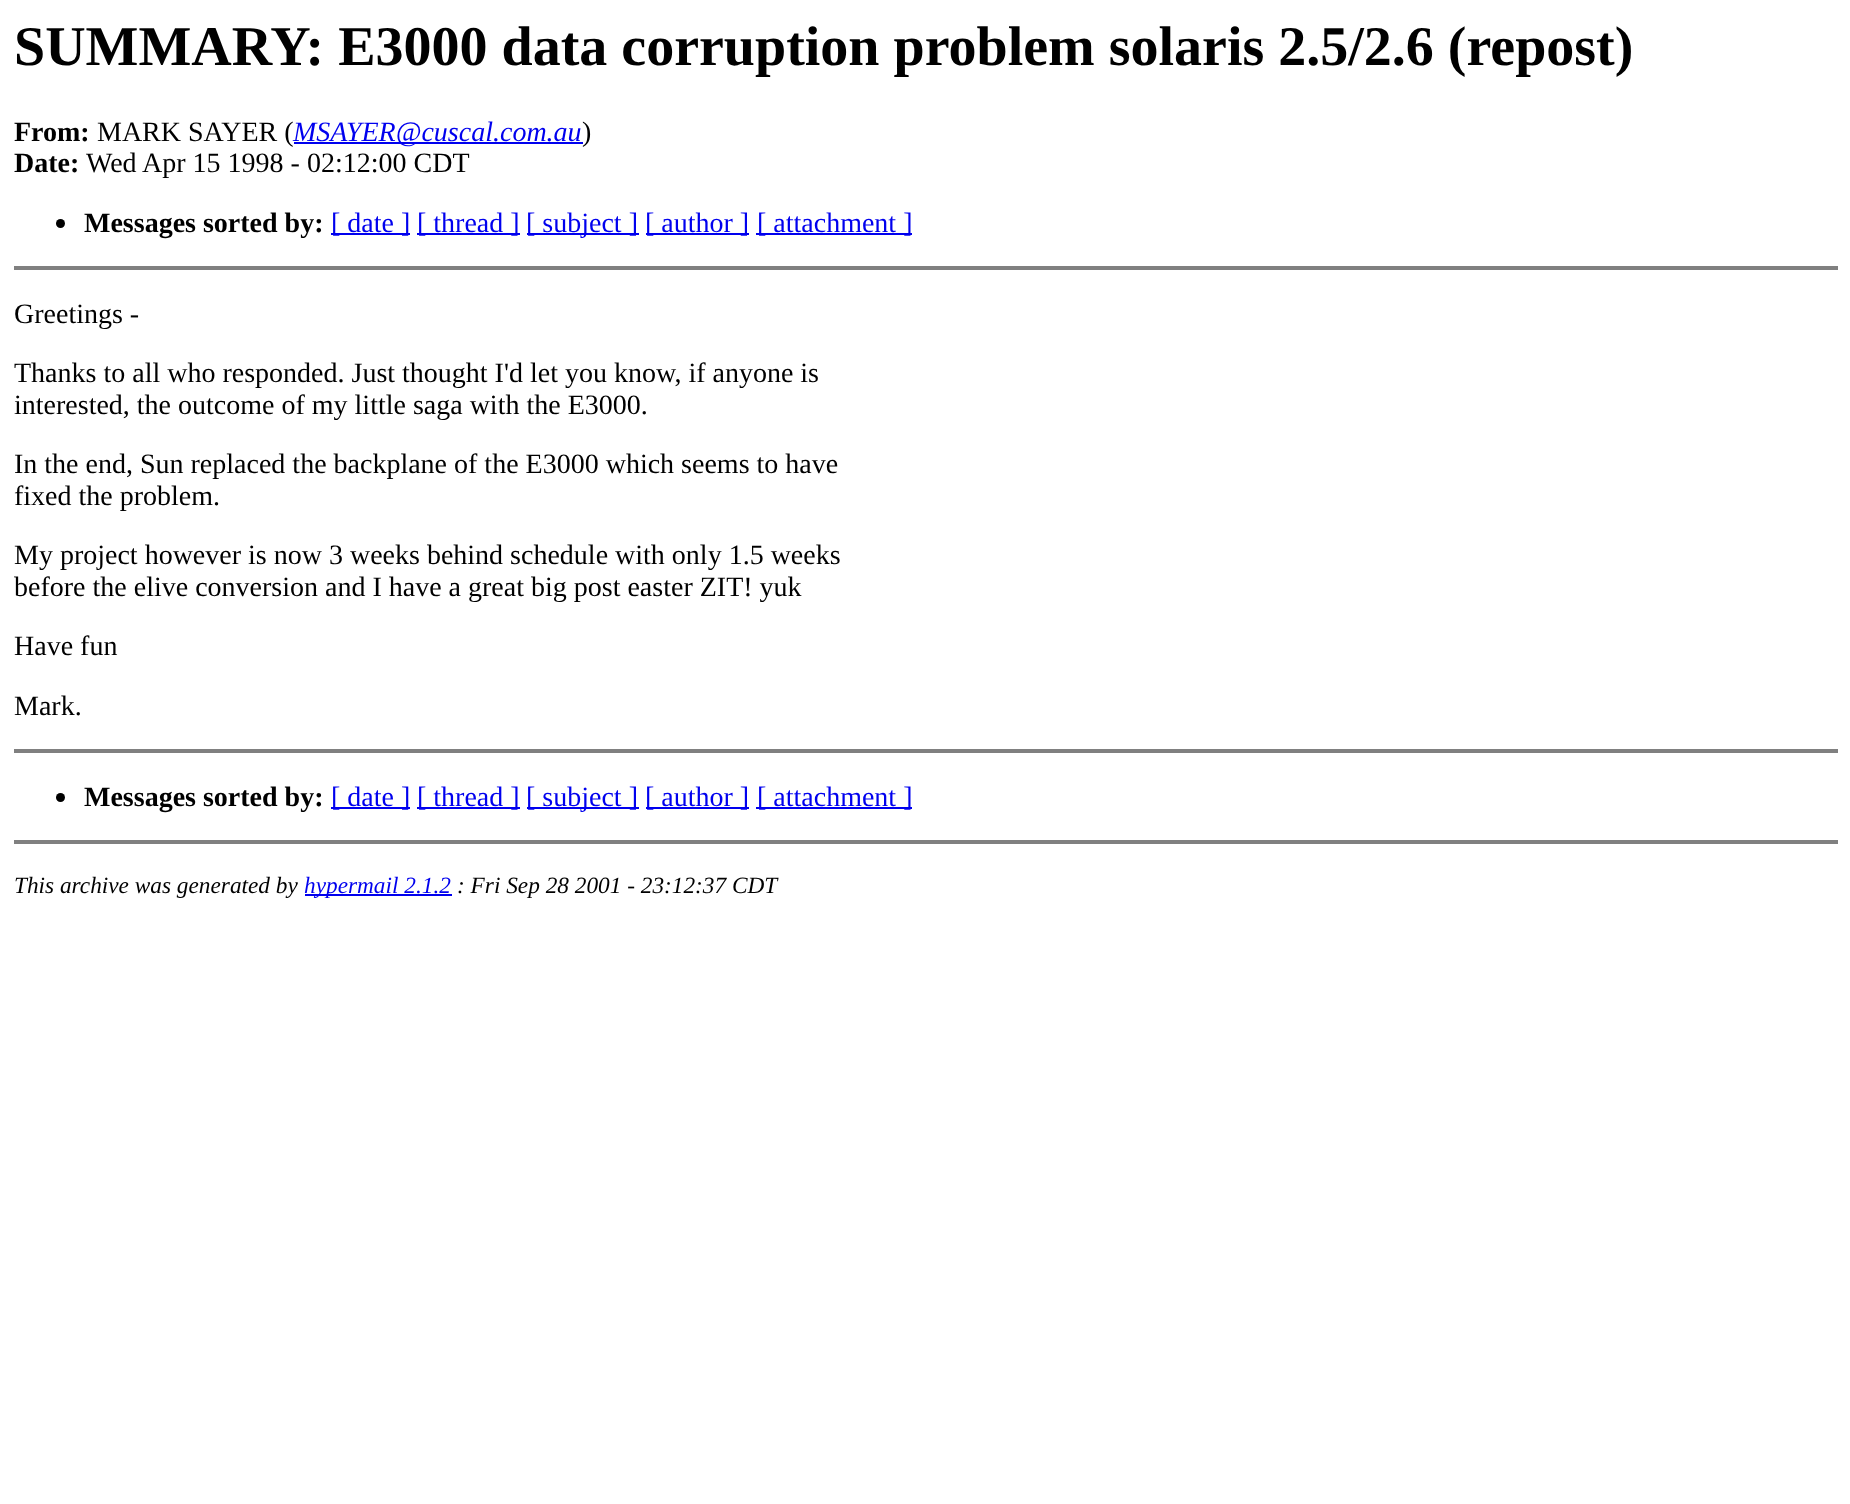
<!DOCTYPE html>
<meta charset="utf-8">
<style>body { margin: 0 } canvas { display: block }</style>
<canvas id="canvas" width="1850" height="1504"></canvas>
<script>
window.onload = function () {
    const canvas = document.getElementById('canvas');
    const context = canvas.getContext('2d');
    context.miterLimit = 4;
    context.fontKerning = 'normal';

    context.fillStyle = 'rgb(255, 255, 255)';
    context.fillRect(0, 0, 1850, 1504);
    context.fillStyle = 'rgb(0, 0, 238)';
    context.fillRect(294, 142, 289, 2);
    context.fillStyle = 'rgb(0, 0, 0)';
    context.beginPath();
    context.arc(60.5, 223.5, 4.5, 0, 2 * Math.PI);
    context.fill();
    context.fillStyle = 'rgb(0, 0, 238)';
    context.fillRect(331, 233, 79, 2);
    context.fillRect(417, 233, 103, 2);
    context.fillRect(527, 233, 112, 2);
    context.fillRect(646, 233, 103, 2);
    context.fillRect(756, 233, 156, 2);
    context.fillStyle = 'rgb(128, 128, 128)';
    context.fillRect(14, 266, 1824, 4);
    context.fillRect(14, 749, 1824, 4);
    context.fillStyle = 'rgb(0, 0, 0)';
    context.beginPath();
    context.arc(60.5, 797.5, 4.5, 0, 2 * Math.PI);
    context.fill();
    context.fillStyle = 'rgb(0, 0, 238)';
    context.fillRect(331, 807, 79, 2);
    context.fillRect(417, 807, 103, 2);
    context.fillRect(527, 807, 112, 2);
    context.fillRect(646, 807, 103, 2);
    context.fillRect(756, 807, 156, 2);
    context.fillStyle = 'rgb(128, 128, 128)';
    context.fillRect(14, 840, 1824, 4);
    context.fillStyle = 'rgb(0, 0, 238)';
    context.fillRect(305, 894, 147, 2);
    context.font = 'bold 56px Liberation Serif';
    context.fillStyle = 'rgb(0, 0, 0)';
    context.fillText('SUMMARY: E3000 data corruption problem solaris 2.5/2.6 (repost)', 14, 65);
    context.font = 'bold 28px Liberation Serif';
    context.fillText('From:', 14, 141);
    context.font = '28px Liberation Serif';
    context.fillText('MARK SAYER (', 97, 141);
    context.font = 'italic 28px Liberation Serif';
    context.fillStyle = 'rgb(0, 0, 238)';
    context.fillText('MSAYER@cuscal.com.au', 293, 141);
    context.font = '28px Liberation Serif';
    context.fillStyle = 'rgb(0, 0, 0)';
    context.fillText(')', 582, 141);
    context.font = 'bold 28px Liberation Serif';
    context.fillText('Date:', 14, 172);
    context.font = '28px Liberation Serif';
    context.fillText('Wed Apr 15 1998 - 02:12:00 CDT', 86, 172);
    context.font = 'bold 28px Liberation Serif';
    context.fillText('Messages sorted by:', 84, 232);
    context.font = '28px Liberation Serif';
    context.fillStyle = 'rgb(0, 0, 238)';
    context.fillText('[ date ]', 331, 232);
    context.fillText('[ thread ]', 417, 232);
    context.fillText('[ subject ]', 526, 232);
    context.fillText('[ author ]', 645, 232);
    context.fillText('[ attachment ]', 757, 232);
    context.fillStyle = 'rgb(0, 0, 0)';
    context.fillText('Greetings -', 14, 323);
    context.fillText('Thanks to all who responded. Just thought I\'d let you know, if anyone is', 14, 382);
    context.fillText('interested, the outcome of my little saga with the E3000.', 14, 414);
    context.fillText('In the end, Sun replaced the backplane of the E3000 which seems to have', 14, 473);
    context.fillText('fixed the problem.', 14, 505);
    context.fillText('My project however is now 3 weeks behind schedule with only 1.5 weeks', 14, 564);
    context.fillText('before the elive conversion and I have a great big post easter ZIT! yuk', 14, 596);
    context.fillText('Have fun', 14, 655);
    context.fillText('Mark.', 14, 715);
    context.font = 'bold 28px Liberation Serif';
    context.fillText('Messages sorted by:', 84, 806);
    context.font = '28px Liberation Serif';
    context.fillStyle = 'rgb(0, 0, 238)';
    context.fillText('[ date ]', 331, 806);
    context.fillText('[ thread ]', 417, 806);
    context.fillText('[ subject ]', 526, 806);
    context.fillText('[ author ]', 645, 806);
    context.fillText('[ attachment ]', 757, 806);
    context.font = 'italic 23.3px Liberation Serif';
    context.fillStyle = 'rgb(0, 0, 0)';
    context.fillText('This archive was generated by', 14, 893);
    context.fillStyle = 'rgb(0, 0, 238)';
    context.fillText('hypermail 2.1.2', 304, 893);
    context.fillStyle = 'rgb(0, 0, 0)';
    context.fillText(': Fri Sep 28 2001 - 23:12:37 CDT', 457, 893);
};
</script>
